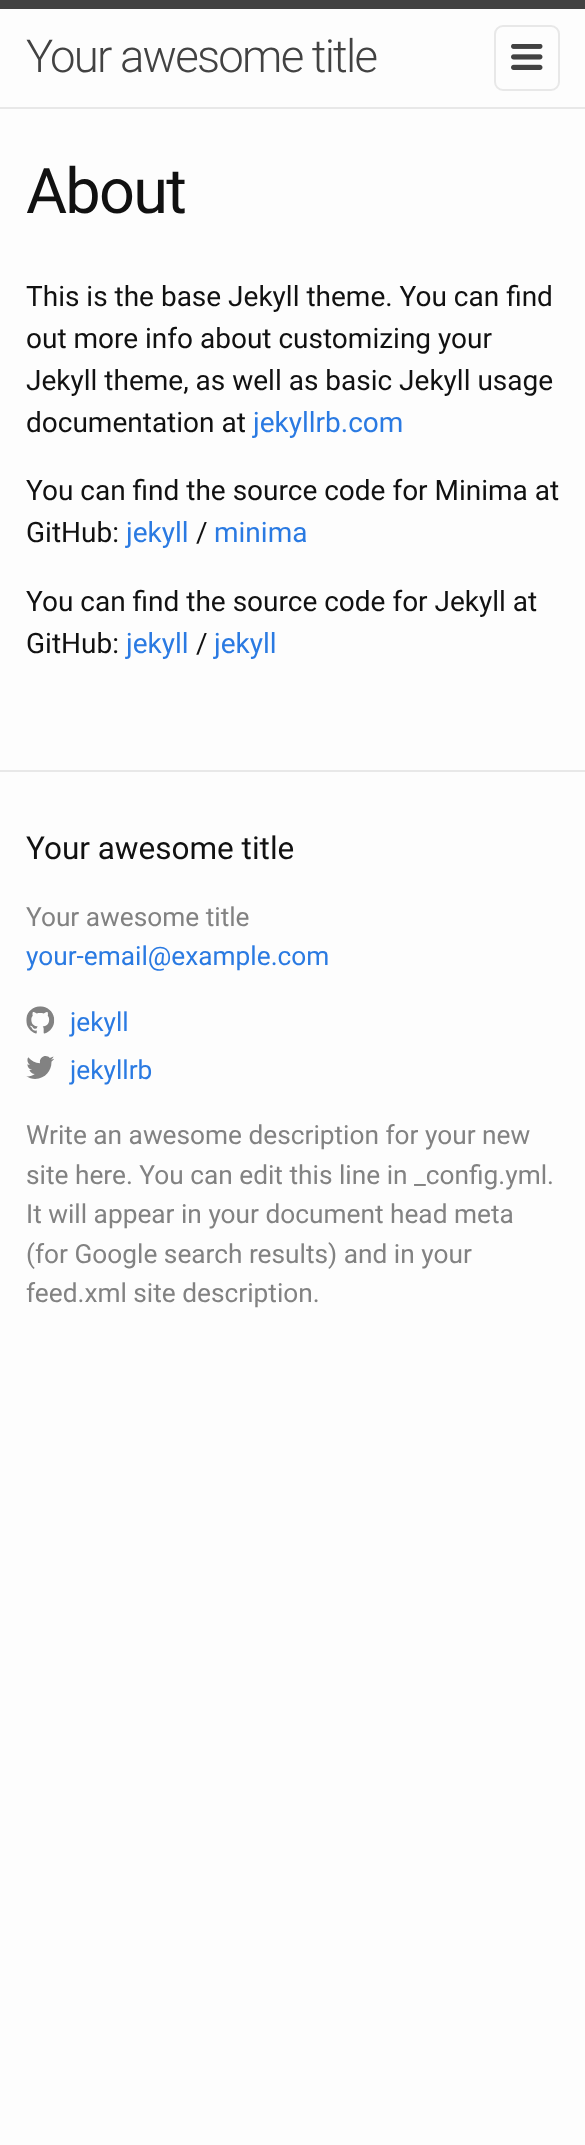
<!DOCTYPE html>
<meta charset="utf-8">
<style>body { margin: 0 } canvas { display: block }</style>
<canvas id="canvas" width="585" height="2145"></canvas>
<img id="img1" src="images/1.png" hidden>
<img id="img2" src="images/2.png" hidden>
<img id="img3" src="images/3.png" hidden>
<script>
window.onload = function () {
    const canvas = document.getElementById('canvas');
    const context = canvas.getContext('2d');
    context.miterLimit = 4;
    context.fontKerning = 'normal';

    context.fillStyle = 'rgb(253, 253, 253)';
    context.fillRect(0, 0, 585, 2145);
    context.fillStyle = 'rgb(66, 66, 66)';
    context.fillRect(0, 0, 585, 9);
    context.fillStyle = 'rgb(232, 232, 232)';
    context.fillRect(0, 107, 585, 2);
    context.beginPath();
    context.roundRect(495, 26, 64, 64, 8);
    context.strokeStyle = 'rgb(232, 232, 232)';
    context.lineWidth = 2;
    context.stroke();
    context.drawImage(document.getElementById('img1'), 511, 44, 32, 26);
    context.fillRect(0, 770, 585, 2);
    context.drawImage(document.getElementById('img2'), 26, 1006, 29, 28);
    context.drawImage(document.getElementById('img3'), 26, 1056, 28, 23);
    context.letterSpacing = '-1.75px';
    context.font = '300 45.5px Roboto';
    context.fillStyle = 'rgb(66, 66, 66)';
    context.fillText('Your awesome title', 26, 72);
    context.font = '63px Roboto';
    context.fillStyle = 'rgb(17, 17, 17)';
    context.fillText('About', 26, 213);
    context.letterSpacing = '0px';
    context.font = '28px Roboto';
    context.fillText('This is the base Jekyll theme. You can find', 26, 306);
    context.fillText('out more info about customizing your', 26, 348);
    context.fillText('Jekyll theme, as well as basic Jekyll usage', 26, 390);
    context.fillText('documentation at', 26, 432);
    context.fillStyle = 'rgb(42, 122, 226)';
    context.fillText('jekyllrb.com', 253, 432);
    context.fillStyle = 'rgb(17, 17, 17)';
    context.fillText('You can find the source code for Minima at', 26, 500);
    context.fillText('GitHub:', 26, 542);
    context.fillStyle = 'rgb(42, 122, 226)';
    context.fillText('jekyll', 126, 542);
    context.fillStyle = 'rgb(17, 17, 17)';
    context.fillText('/', 196, 542);
    context.fillStyle = 'rgb(42, 122, 226)';
    context.fillText('minima', 214, 542);
    context.fillStyle = 'rgb(17, 17, 17)';
    context.fillText('You can find the source code for Jekyll at', 26, 611);
    context.fillText('GitHub:', 26, 653);
    context.fillStyle = 'rgb(42, 122, 226)';
    context.fillText('jekyll', 126, 653);
    context.fillStyle = 'rgb(17, 17, 17)';
    context.fillText('/', 196, 653);
    context.fillStyle = 'rgb(42, 122, 226)';
    context.fillText('jekyll', 214, 653);
    context.font = '31.5px Roboto';
    context.fillStyle = 'rgb(17, 17, 17)';
    context.fillText('Your awesome title', 26, 859);
    context.font = '26.25px Roboto';
    context.fillStyle = 'rgb(130, 130, 130)';
    context.fillText('Your awesome title', 26, 926);
    context.fillStyle = 'rgb(42, 122, 226)';
    context.fillText('your-email@example.com', 26, 965);
    context.fillText('jekyll', 70, 1031);
    context.fillText('jekyllrb', 70, 1079);
    context.fillStyle = 'rgb(130, 130, 130)';
    context.fillText('Write an awesome description for your new', 26, 1144);
    context.fillText('site here. You can edit this line in _config.yml.', 26, 1184);
    context.fillText('It will appear in your document head meta', 26, 1223);
    context.fillText('(for Google search results) and in your', 26, 1263);
    context.fillText('feed.xml site description.', 26, 1302);
};
</script>
